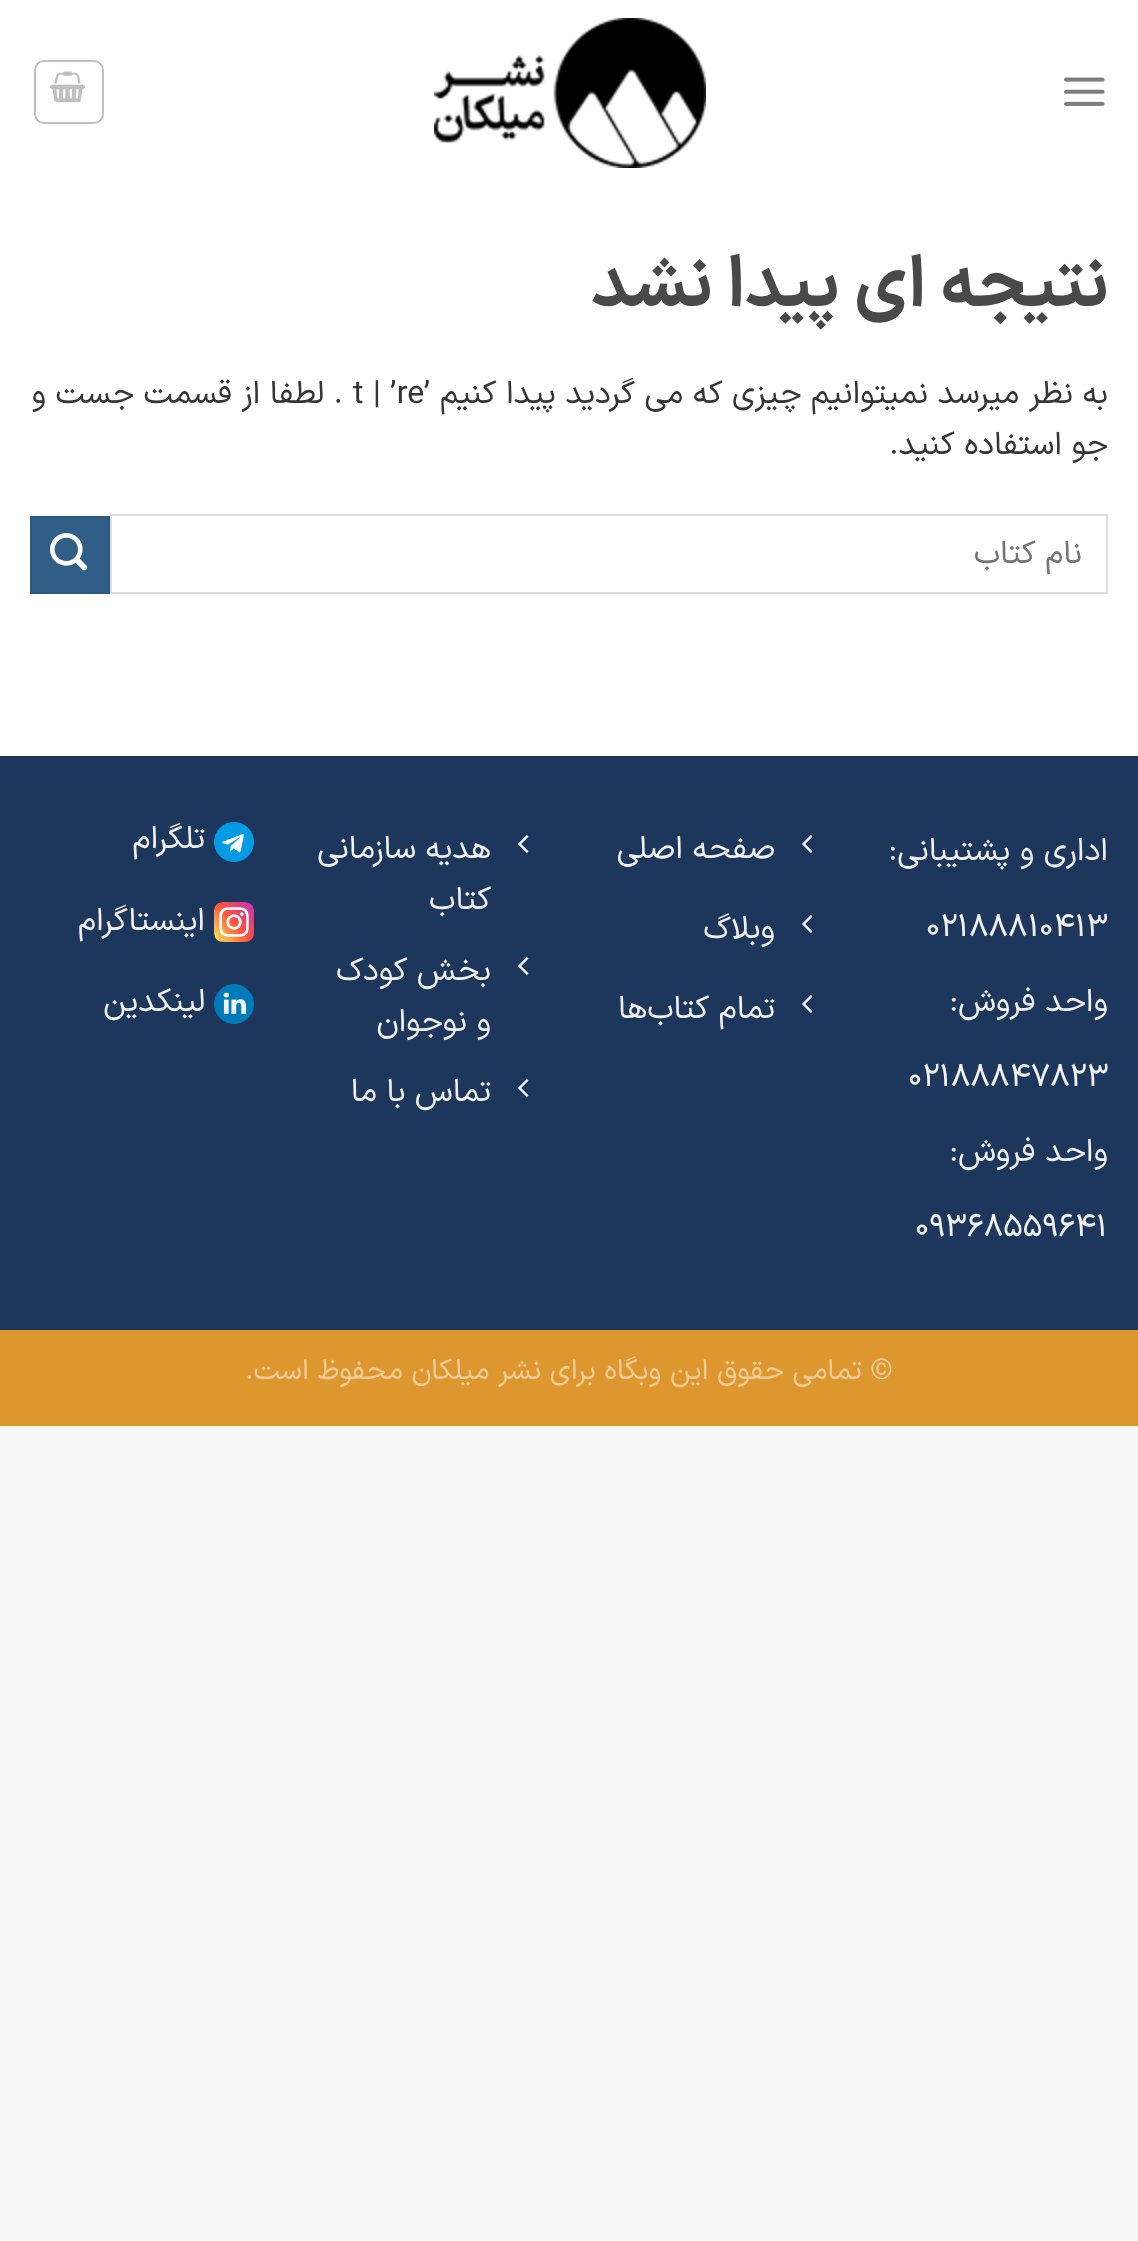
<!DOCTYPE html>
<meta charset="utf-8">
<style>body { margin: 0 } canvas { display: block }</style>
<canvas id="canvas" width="1138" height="2241"></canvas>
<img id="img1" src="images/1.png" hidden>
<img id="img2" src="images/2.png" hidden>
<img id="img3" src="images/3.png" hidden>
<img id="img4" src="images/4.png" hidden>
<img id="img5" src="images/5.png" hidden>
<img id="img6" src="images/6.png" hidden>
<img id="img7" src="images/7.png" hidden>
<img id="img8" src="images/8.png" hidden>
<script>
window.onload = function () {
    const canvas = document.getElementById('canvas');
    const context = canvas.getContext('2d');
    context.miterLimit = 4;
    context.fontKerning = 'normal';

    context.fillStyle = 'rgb(247, 247, 247)';
    context.fillRect(0, 0, 1138, 2241);
    context.fillStyle = 'rgb(255, 255, 255)';
    context.fillRect(0, 0, 1138, 756);
    context.drawImage(document.getElementById('img1'), 1064, 77, 41, 29);
    context.drawImage(document.getElementById('img2'), 434, 18, 272, 150);
    context.beginPath();
    context.roundRect(35, 61, 68, 62, 9);
    context.strokeStyle = 'rgb(192, 192, 192)';
    context.lineWidth = 2;
    context.stroke();
    context.drawImage(document.getElementById('img3'), 50, 71, 35, 32);
    context.strokeStyle = 'rgb(221, 221, 221)';
    context.strokeRect(111, 515, 996, 78);
    context.fillStyle = 'rgb(48, 94, 134)';
    context.beginPath();
    context.rect(31, 517, 78, 76);
    context.fill();
    context.strokeStyle = 'rgb(46, 89, 127)';
    context.stroke();
    context.drawImage(document.getElementById('img4'), 50, 533, 38, 38);
    context.fillStyle = 'rgb(29, 54, 91)';
    context.fillRect(0, 756, 1138, 574);
    context.drawImage(document.getElementById('img5'), 802, 835, 11, 18);
    context.drawImage(document.getElementById('img5'), 802, 915, 11, 18);
    context.drawImage(document.getElementById('img5'), 802, 995, 11, 18);
    context.drawImage(document.getElementById('img5'), 518, 835, 11, 18);
    context.drawImage(document.getElementById('img5'), 518, 957, 11, 18);
    context.drawImage(document.getElementById('img5'), 518, 1079, 11, 18);
    context.drawImage(document.getElementById('img6'), 214, 822, 40, 40);
    context.drawImage(document.getElementById('img7'), 214, 902, 40, 40);
    context.drawImage(document.getElementById('img8'), 214, 984, 40, 40);
    context.fillStyle = 'rgb(221, 151, 46)';
    context.fillRect(0, 1330, 1138, 96);
    context.direction = 'rtl';
    context.font = 'bold 70.5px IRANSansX';
    context.fillStyle = 'rgb(73, 73, 73)';
    context.fillText('نتیجه ای پیدا نشد', 1109, 306);
    context.font = '32px IRANSansX';
    context.fillStyle = 'rgb(53, 53, 53)';
    context.fillText('به نظر میرسد نمیتوانیم چیزی که می گردید پیدا کنیم ’', 1108, 403);
    context.direction = 'ltr';
    context.fillText('t | ’re', 353, 403);
    context.direction = 'rtl';
    context.fillText('. لطفا از قسمت جست و', 343, 403);
    context.fillText('جو استفاده کنید.', 1108, 454);
    context.fillStyle = 'rgb(117, 117, 117)';
    context.fillText('نام کتاب', 1082, 563);
    context.fillStyle = 'rgb(241, 241, 241)';
    context.fillText('اداری و پشتیبانی:', 1108, 860);
    context.direction = 'ltr';
    context.font = '32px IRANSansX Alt';
    context.fillText('02188810413', 926, 936);
    context.direction = 'rtl';
    context.font = '32px IRANSansX';
    context.fillText('واحد فروش:', 1108, 1011);
    context.direction = 'ltr';
    context.font = '32px IRANSansX Alt';
    context.fillText('02188847823', 908, 1086);
    context.direction = 'rtl';
    context.font = '32px IRANSansX';
    context.fillText('واحد فروش:', 1108, 1161);
    context.direction = 'ltr';
    context.font = '32px IRANSansX Alt';
    context.fillText('09368559641', 915, 1236);
    context.direction = 'rtl';
    context.font = '32px IRANSansX';
    context.fillText('صفحه اصلی', 775, 858);
    context.fillText('وبلاگ', 775, 938);
    context.fillText('تمام کتاب‌ها', 775, 1018);
    context.fillText('هدیه سازمانی', 491, 858);
    context.fillText('کتاب', 491, 909);
    context.fillText('بخش کودک', 491, 980);
    context.fillText('و نوجوان', 491, 1031);
    context.fillText('تماس با ما', 491, 1101);
    context.fillText('تلگرام', 205, 848);
    context.fillText('اینستاگرام', 205, 930);
    context.fillText('لینکدین', 205, 1011);
    context.font = '28.8px IRANSansX';
    context.fillStyle = 'rgb(238, 203, 151)';
    context.fillText('© تمامی حقوق این وبگاه برای نشر میلکان محفوظ است.', 893, 1379);
};
</script>
